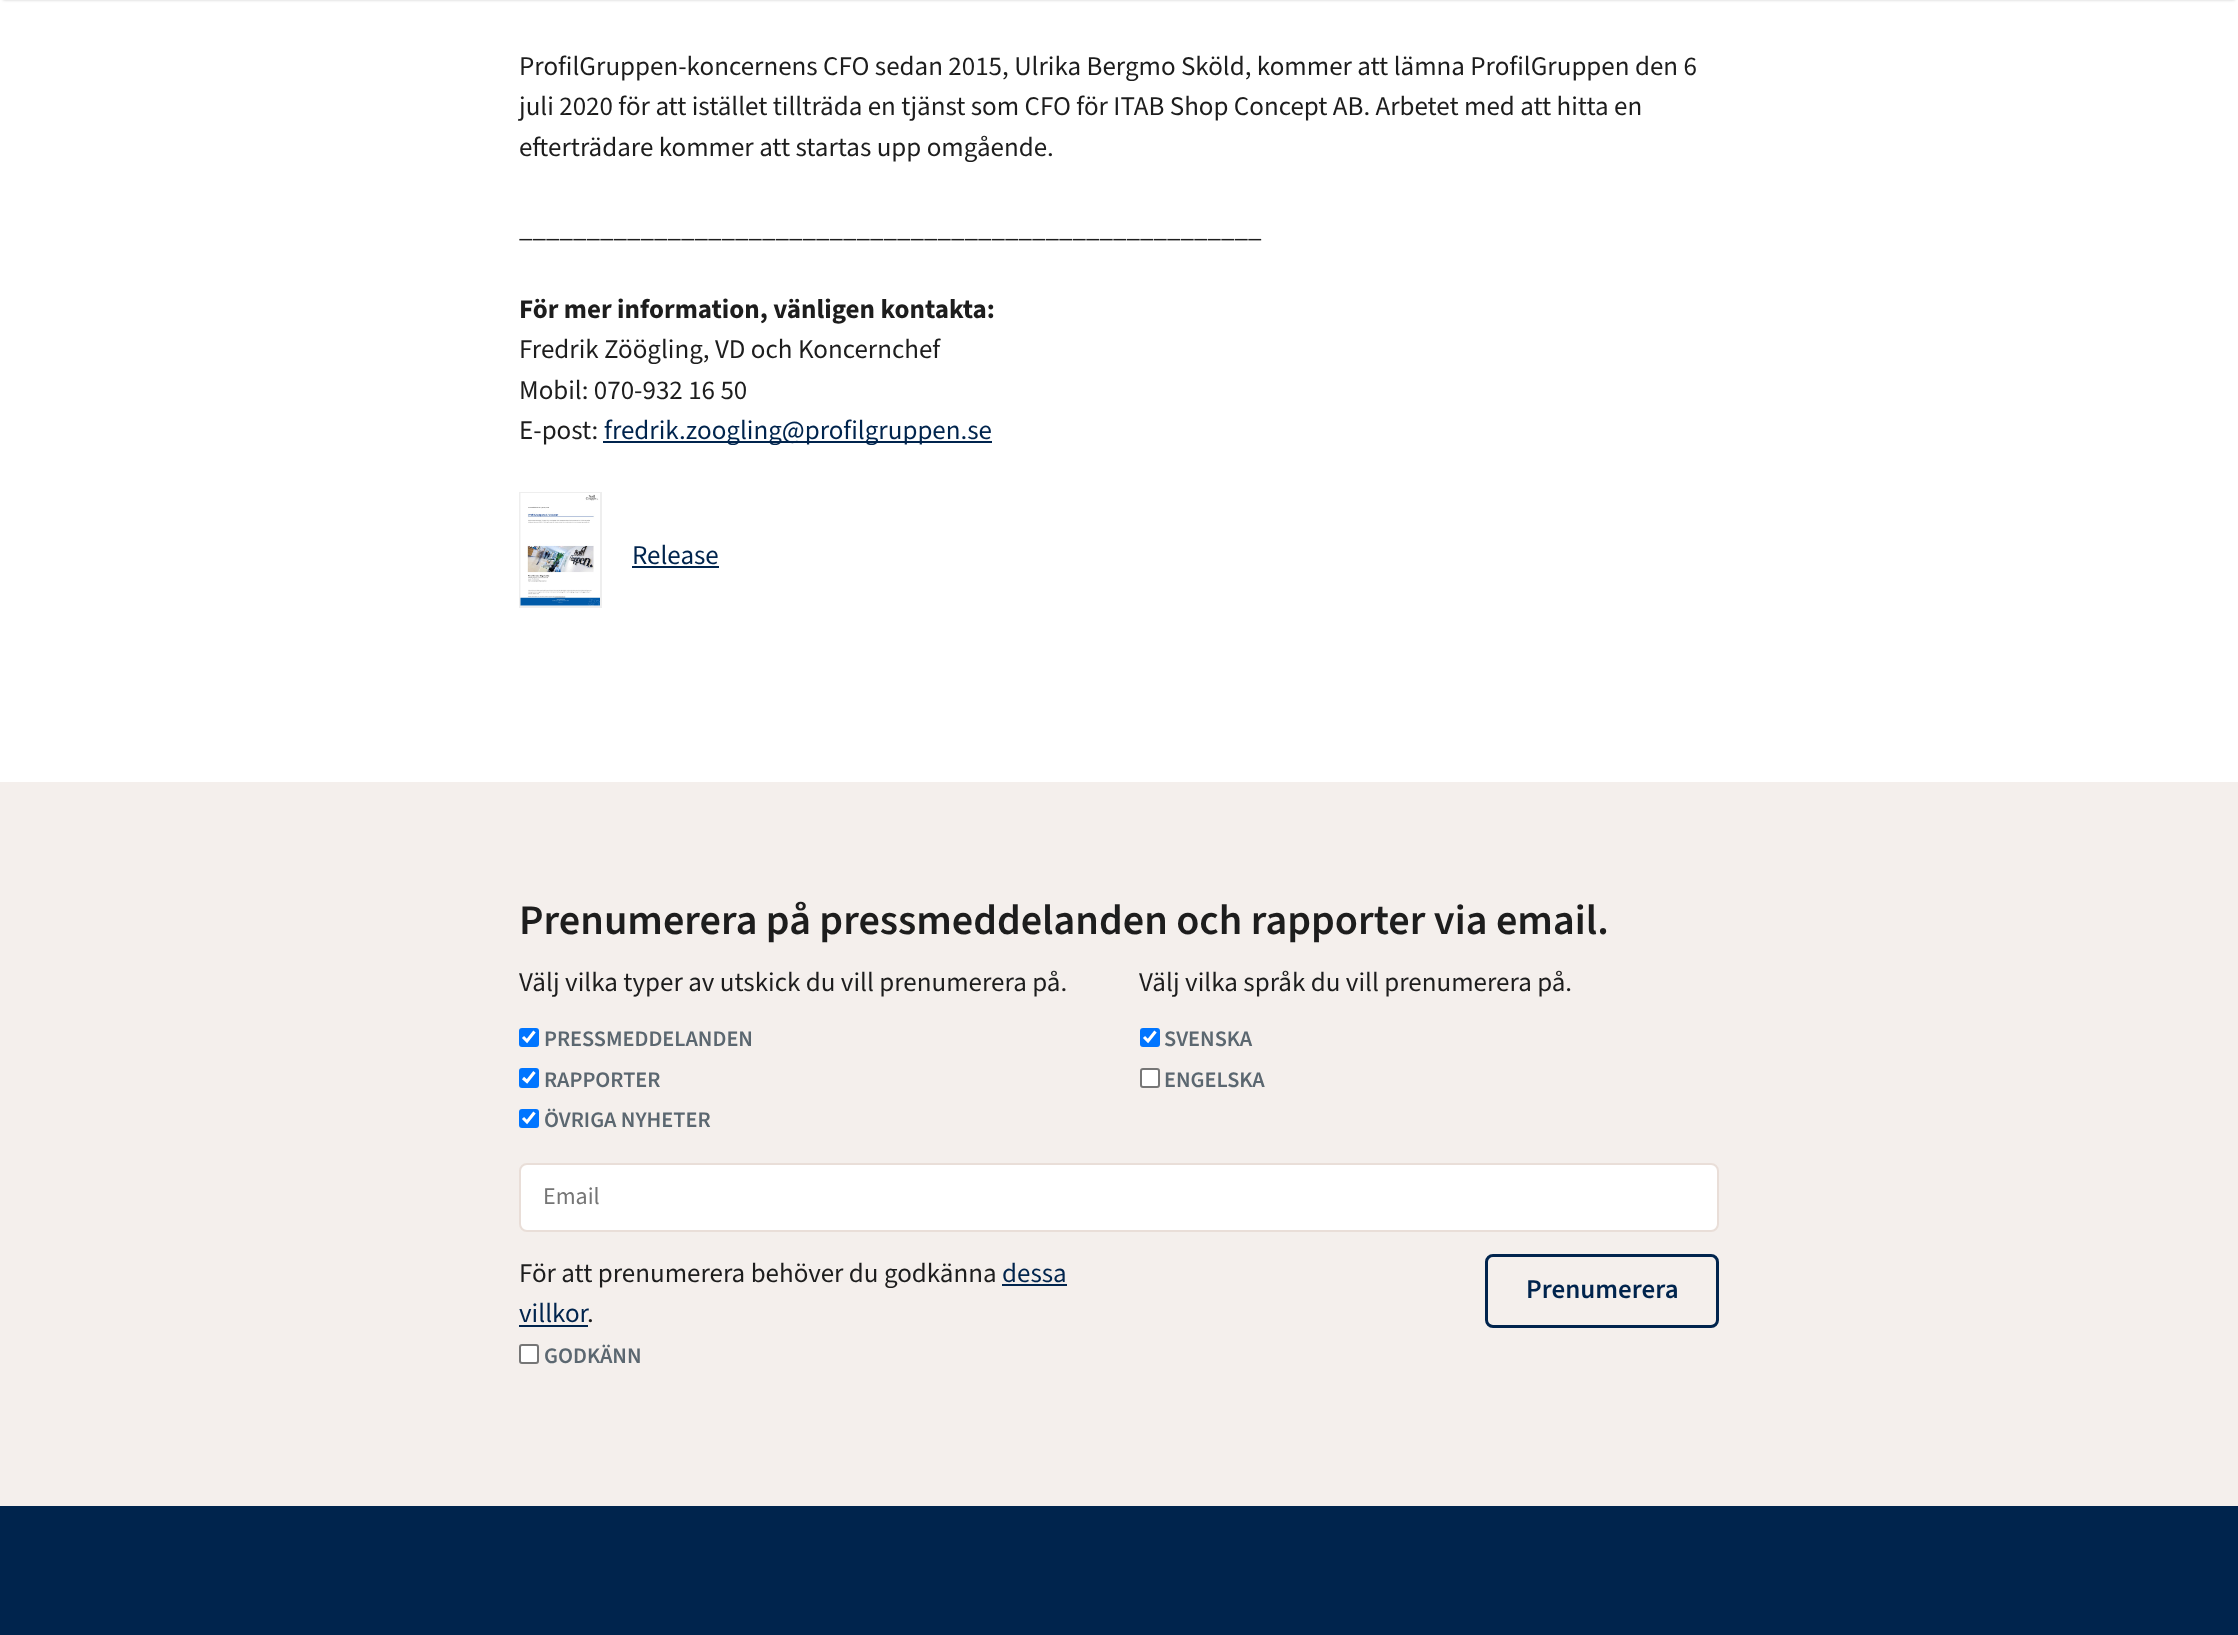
<!DOCTYPE html>
<meta charset="utf-8">
<style>body { margin: 0 } canvas { display: block }</style>
<canvas id="canvas" width="2238" height="1635"></canvas>
<img id="img1" src="images/1.png" hidden>
<script>
window.onload = function () {
    const canvas = document.getElementById('canvas');
    const context = canvas.getContext('2d');
    context.miterLimit = 4;
    context.fontKerning = 'normal';

    context.fillStyle = 'rgb(244, 239, 236)';
    context.fillRect(0, 0, 2238, 1635);
    context.fillStyle = 'rgb(255, 255, 255)';
    context.fillRect(0, 0, 2238, 782);
    context.fillStyle = 'rgba(0, 0, 0, 0.2)';
    context.filter = 'blur(1.5px)';
    context.beginPath();
    context.rect(3, -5, 2232, 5);
    context.fill();
    context.filter = 'none';
    context.fillStyle = 'rgb(0, 36, 77)';
    context.fillRect(603, 441, 389, 2);
    context.strokeStyle = 'rgb(238, 238, 238)';
    context.lineWidth = 2;
    context.strokeRect(520, 493, 81, 114);
    context.drawImage(document.getElementById('img1'), 520, 493, 80, 113);
    context.fillRect(632, 566, 87, 2);
    context.fillStyle = 'rgb(0, 117, 255)';
    context.beginPath();
    context.roundRect(519, 1028, 20, 19, 3);
    context.fill();
    context.beginPath();
    context.moveTo(523, 1037);
    context.lineTo(527, 1041);
    context.lineTo(534.5, 1031.5);
    context.strokeStyle = 'rgb(255, 255, 255)';
    context.lineWidth = 3.1;
    context.stroke();
    context.beginPath();
    context.roundRect(519, 1068, 20, 20, 3);
    context.fill();
    context.beginPath();
    context.moveTo(523, 1078);
    context.lineTo(527, 1081.5);
    context.lineTo(534.5, 1072);
    context.stroke();
    context.beginPath();
    context.roundRect(519, 1109, 20, 19, 3);
    context.fill();
    context.beginPath();
    context.moveTo(523, 1118);
    context.lineTo(527, 1122);
    context.lineTo(534.5, 1112.5);
    context.stroke();
    context.beginPath();
    context.roundRect(1140, 1028, 20, 19, 3);
    context.fill();
    context.beginPath();
    context.moveTo(1144, 1037);
    context.lineTo(1148, 1041);
    context.lineTo(1155.5, 1031.5);
    context.stroke();
    context.fillStyle = 'rgb(255, 255, 255)';
    context.beginPath();
    context.roundRect(1141, 1069, 18, 18, 2);
    context.fill();
    context.strokeStyle = 'rgb(118, 118, 118)';
    context.lineWidth = 2;
    context.stroke();
    context.beginPath();
    context.roundRect(520, 1164, 1198, 67, 7);
    context.fill();
    context.strokeStyle = 'rgb(233, 222, 216)';
    context.stroke();
    context.fillStyle = 'rgb(0, 36, 77)';
    context.fillRect(1002, 1284, 65, 2);
    context.fillRect(519, 1325, 69, 2);
    context.fillStyle = 'rgb(255, 255, 255)';
    context.beginPath();
    context.roundRect(520, 1345, 18, 18, 2);
    context.fill();
    context.strokeStyle = 'rgb(118, 118, 118)';
    context.stroke();
    context.beginPath();
    context.roundRect(1486.5, 1255.5, 231, 71, 6.5);
    context.strokeStyle = 'rgb(0, 36, 77)';
    context.lineWidth = 3;
    context.stroke();
    context.fillStyle = 'rgb(0, 36, 77)';
    context.fillRect(0, 1506, 2238, 129);
    context.font = '27px "Source Sans 3"';
    context.fillStyle = 'rgb(29, 29, 29)';
    context.fillText('ProfilGruppen-koncernens CFO sedan 2015, Ulrika Bergmo Sköld, kommer att lämna ProfilGruppen den 6', 519, 75);
    context.fillText('juli 2020 för att istället tillträda en tjänst som CFO för ITAB Shop Concept AB. Arbetet med att hitta en', 519, 115);
    context.fillText('efterträdare kommer att startas upp omgående.', 519, 156);
    context.fillText('_______________________________________________________', 519, 237);
    context.font = 'bold 27px "Source Sans 3"';
    context.fillText('För mer information, vänligen kontakta:', 519, 318);
    context.font = '27px "Source Sans 3"';
    context.fillText('Fredrik Zöögling, VD och Koncernchef', 519, 358);
    context.fillText('Mobil: 070-932 16 50', 519, 399);
    context.fillText('E-post:', 519, 439);
    context.fillStyle = 'rgb(0, 36, 77)';
    context.fillText('fredrik.zoogling@profilgruppen.se', 604, 439);
    context.fillText('Release', 632, 564);
    context.font = '600 42.2px "Source Sans 3"';
    context.fillStyle = 'rgb(29, 29, 29)';
    context.fillText('Prenumerera på pressmeddelanden och rapporter via email.', 519, 934);
    context.font = '27px "Source Sans 3"';
    context.fillText('Välj vilka typer av utskick du vill prenumerera på.', 519, 991);
    context.fillText('Välj vilka språk du vill prenumerera på.', 1139, 991);
    context.font = '600 22.25px "Source Sans 3"';
    context.fillStyle = 'rgb(91, 103, 112)';
    context.fillText('PRESSMEDDELANDEN', 544, 1046);
    context.fillText('RAPPORTER', 544, 1087);
    context.fillText('ÖVRIGA NYHETER', 544, 1127);
    context.fillText('SVENSKA', 1164, 1046);
    context.fillText('ENGELSKA', 1164, 1087);
    context.font = '24px "Source Sans 3"';
    context.fillStyle = 'rgb(117, 117, 117)';
    context.fillText('Email', 543, 1204);
    context.font = '27px "Source Sans 3"';
    context.fillStyle = 'rgb(29, 29, 29)';
    context.fillText('För att prenumerera behöver du godkänna', 519, 1282);
    context.fillStyle = 'rgb(0, 36, 77)';
    context.fillText('dessa', 1002, 1282);
    context.fillText('villkor', 519, 1322);
    context.fillStyle = 'rgb(29, 29, 29)';
    context.fillText('.', 587, 1322);
    context.font = '600 22.25px "Source Sans 3"';
    context.fillStyle = 'rgb(91, 103, 112)';
    context.fillText('GODKÄNN', 544, 1363);
    context.font = '600 27px "Source Sans 3"';
    context.fillStyle = 'rgb(0, 36, 77)';
    context.fillText('Prenumerera', 1526, 1298);
};
</script>
